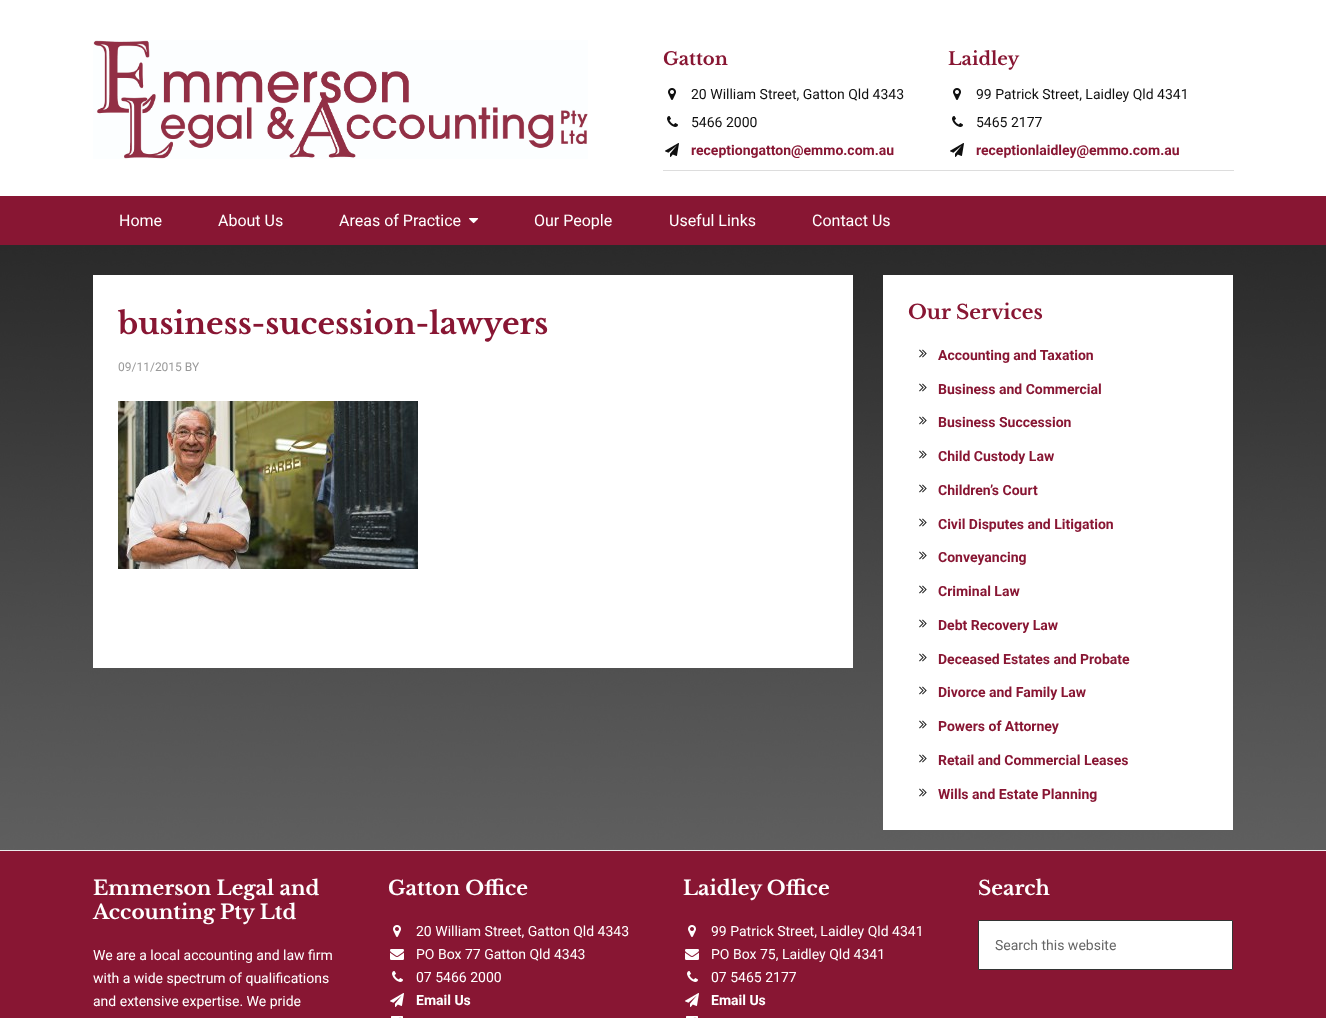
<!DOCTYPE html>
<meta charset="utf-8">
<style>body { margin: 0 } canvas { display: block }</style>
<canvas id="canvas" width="1326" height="1018"></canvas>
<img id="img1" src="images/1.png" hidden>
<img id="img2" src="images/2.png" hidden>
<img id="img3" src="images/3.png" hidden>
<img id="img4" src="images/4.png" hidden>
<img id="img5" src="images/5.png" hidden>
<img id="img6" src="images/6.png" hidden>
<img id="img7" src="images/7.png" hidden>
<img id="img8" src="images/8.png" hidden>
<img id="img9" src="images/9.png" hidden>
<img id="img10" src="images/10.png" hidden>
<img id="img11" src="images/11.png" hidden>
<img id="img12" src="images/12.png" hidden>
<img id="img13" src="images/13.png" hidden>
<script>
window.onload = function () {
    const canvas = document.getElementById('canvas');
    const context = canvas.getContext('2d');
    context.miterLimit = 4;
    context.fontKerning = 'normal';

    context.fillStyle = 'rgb(255, 255, 255)';
    context.fillRect(0, 0, 1326, 1018);
    context.drawImage(document.getElementById('img1'), 0, 245, 1326, 605);
    context.drawImage(document.getElementById('img2'), 93, 40, 495, 119);
    context.fillStyle = 'rgb(221, 221, 221)';
    context.fillRect(663, 170, 571, 1);
    context.drawImage(document.getElementById('img3'), 668, 88, 8, 12);
    context.drawImage(document.getElementById('img4'), 667, 116, 11, 11);
    context.drawImage(document.getElementById('img5'), 665, 143, 14, 14);
    context.drawImage(document.getElementById('img3'), 953, 88, 8, 12);
    context.drawImage(document.getElementById('img4'), 952, 116, 11, 11);
    context.drawImage(document.getElementById('img5'), 950, 143, 14, 14);
    context.fillStyle = 'rgb(136, 22, 51)';
    context.fillRect(0, 196, 1326, 49);
    context.drawImage(document.getElementById('img6'), 469, 218, 10, 6);
    context.fillStyle = 'rgb(255, 255, 255)';
    context.fillRect(93, 275, 760, 393);
    context.drawImage(document.getElementById('img7'), 118, 401, 300, 168);
    context.fillRect(883, 275, 350, 555);
    context.drawImage(document.getElementById('img8'), 919, 349, 8, 9);
    context.drawImage(document.getElementById('img8'), 919, 383, 8, 9);
    context.drawImage(document.getElementById('img8'), 919, 416, 8, 9);
    context.drawImage(document.getElementById('img8'), 919, 450, 8, 9);
    context.drawImage(document.getElementById('img8'), 919, 484, 8, 9);
    context.drawImage(document.getElementById('img8'), 919, 518, 8, 9);
    context.drawImage(document.getElementById('img8'), 919, 551, 8, 9);
    context.drawImage(document.getElementById('img8'), 919, 585, 8, 9);
    context.drawImage(document.getElementById('img8'), 919, 619, 8, 9);
    context.drawImage(document.getElementById('img8'), 919, 653, 8, 9);
    context.drawImage(document.getElementById('img8'), 919, 686, 8, 9);
    context.drawImage(document.getElementById('img8'), 919, 720, 8, 9);
    context.drawImage(document.getElementById('img8'), 919, 754, 8, 9);
    context.drawImage(document.getElementById('img8'), 919, 788, 8, 9);
    context.fillStyle = 'rgb(136, 22, 51)';
    context.fillRect(0, 851, 1326, 167);
    context.fillStyle = 'rgb(236, 236, 236)';
    context.fillRect(0, 850, 1326, 1);
    context.drawImage(document.getElementById('img9'), 393, 925, 8, 12);
    context.drawImage(document.getElementById('img10'), 390, 949, 14, 11);
    context.drawImage(document.getElementById('img11'), 392, 971, 11, 11);
    context.drawImage(document.getElementById('img12'), 390, 993, 14, 14);
    context.drawImage(document.getElementById('img13'), 391, 1016, 12, 2);
    context.drawImage(document.getElementById('img9'), 688, 925, 8, 12);
    context.drawImage(document.getElementById('img10'), 685, 949, 14, 11);
    context.drawImage(document.getElementById('img11'), 687, 971, 11, 11);
    context.drawImage(document.getElementById('img12'), 685, 993, 14, 14);
    context.drawImage(document.getElementById('img13'), 686, 1016, 12, 2);
    context.fillStyle = 'rgb(255, 255, 255)';
    context.beginPath();
    context.rect(978.5, 920.5, 254, 49);
    context.fill();
    context.strokeStyle = 'rgb(51, 51, 51)';
    context.stroke();
    context.font = 'bold 18px Libre Baskerville';
    context.fillStyle = 'rgb(136, 22, 51)';
    context.fillText('Gatton', 663, 65);
    context.font = '14px Roboto';
    context.fillStyle = 'rgb(15, 15, 15)';
    context.fillText('20 William Street, Gatton Qld 4343', 691, 99);
    context.fillText('5466 2000', 691, 127);
    context.font = 'bold 14px Roboto';
    context.fillStyle = 'rgb(136, 22, 51)';
    context.fillText('receptiongatton@emmo.com.au', 691, 155);
    context.font = 'bold 18px Libre Baskerville';
    context.fillText('Laidley', 948, 65);
    context.font = '14px Roboto';
    context.fillStyle = 'rgb(15, 15, 15)';
    context.fillText('99 Patrick Street, Laidley Qld 4341', 976, 99);
    context.fillText('5465 2177', 976, 127);
    context.font = 'bold 14px Roboto';
    context.fillStyle = 'rgb(136, 22, 51)';
    context.fillText('receptionlaidley@emmo.com.au', 976, 155);
    context.font = '16px Roboto';
    context.fillStyle = 'rgb(255, 255, 255)';
    context.fillText('Home', 119, 226);
    context.fillText('About Us', 218, 226);
    context.fillText('Areas of Practice', 339, 226);
    context.fillText('Our People', 534, 226);
    context.fillText('Useful Links', 669, 226);
    context.fillText('Contact Us', 812, 226);
    context.font = 'bold 30px Libre Baskerville';
    context.fillStyle = 'rgb(136, 22, 51)';
    context.fillText('business-sucession-lawyers', 118, 334);
    context.font = '12px Roboto';
    context.fillStyle = 'rgb(153, 153, 153)';
    context.fillText('09/11/2015 BY', 118, 371);
    context.font = 'bold 20px Libre Baskerville';
    context.fillStyle = 'rgb(136, 22, 51)';
    context.fillText('Our Services', 908, 319);
    context.font = 'bold 14px Roboto';
    context.fillText('Accounting and Taxation', 938, 360);
    context.fillText('Business and Commercial', 938, 394);
    context.fillText('Business Succession', 938, 427);
    context.fillText('Child Custody Law', 938, 461);
    context.fillText('Children’s Court', 938, 495);
    context.fillText('Civil Disputes and Litigation', 938, 529);
    context.fillText('Conveyancing', 938, 562);
    context.fillText('Criminal Law', 938, 596);
    context.fillText('Debt Recovery Law', 938, 630);
    context.fillText('Deceased Estates and Probate', 938, 664);
    context.fillText('Divorce and Family Law', 938, 697);
    context.fillText('Powers of Attorney', 938, 731);
    context.fillText('Retail and Commercial Leases', 938, 765);
    context.fillText('Wills and Estate Planning', 938, 799);
    context.font = 'bold 20px Libre Baskerville';
    context.fillStyle = 'rgb(255, 255, 255)';
    context.fillText('Emmerson Legal and', 93, 895);
    context.fillText('Accounting Pty Ltd', 93, 919);
    context.font = '14px Roboto';
    context.fillText('We are a local accounting and law firm', 93, 960);
    context.fillText('with a wide spectrum of qualifications', 93, 983);
    context.fillText('and extensive expertise. We pride', 93, 1006);
    context.font = 'bold 20px Libre Baskerville';
    context.fillText('Gatton Office', 388, 895);
    context.font = '14px Roboto';
    context.fillText('20 William Street, Gatton Qld 4343', 416, 936);
    context.fillText('PO Box 77 Gatton Qld 4343', 416, 959);
    context.fillText('07 5466 2000', 416, 982);
    context.font = 'bold 14px Roboto';
    context.fillText('Email Us', 416, 1005);
    context.font = 'bold 20px Libre Baskerville';
    context.fillText('Laidley Office', 683, 895);
    context.font = '14px Roboto';
    context.fillText('99 Patrick Street, Laidley Qld 4341', 711, 936);
    context.fillText('PO Box 75, Laidley Qld 4341', 711, 959);
    context.fillText('07 5465 2177', 711, 982);
    context.font = 'bold 14px Roboto';
    context.fillText('Email Us', 711, 1005);
    context.font = 'bold 20px Libre Baskerville';
    context.fillText('Search', 978, 895);
    context.font = '14px Roboto';
    context.fillStyle = 'rgb(102, 102, 102)';
    context.fillText('Search this website', 995, 950);
};
</script>
